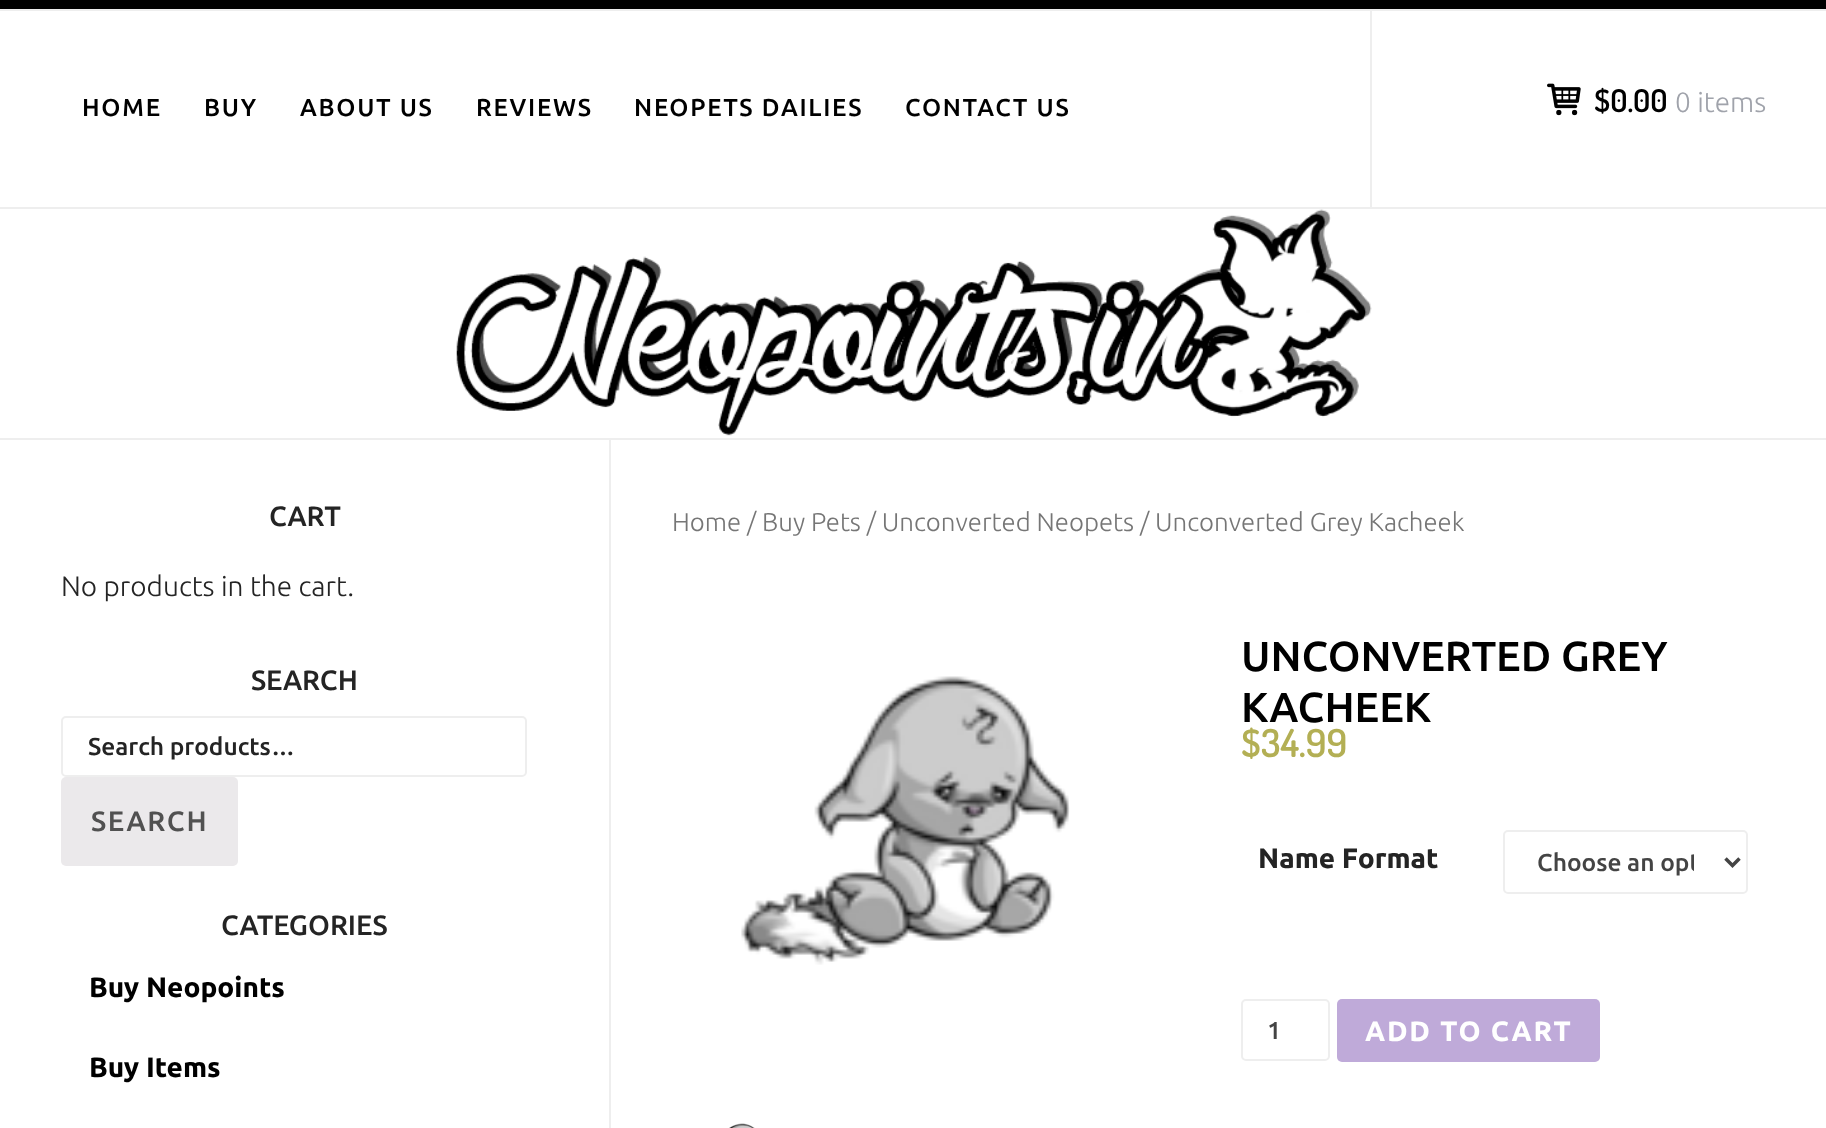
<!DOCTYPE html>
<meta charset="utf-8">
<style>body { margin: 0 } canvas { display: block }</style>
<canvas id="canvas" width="1826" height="1128"></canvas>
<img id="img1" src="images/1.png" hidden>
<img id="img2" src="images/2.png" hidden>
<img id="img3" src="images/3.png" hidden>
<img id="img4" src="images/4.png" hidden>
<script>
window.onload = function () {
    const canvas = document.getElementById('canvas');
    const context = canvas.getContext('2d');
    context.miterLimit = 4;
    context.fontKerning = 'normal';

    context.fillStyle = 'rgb(255, 255, 255)';
    context.fillRect(0, 0, 1826, 1128);
    context.fillStyle = 'rgb(238, 238, 238)';
    context.fillRect(0, 207, 1826, 2);
    context.fillRect(0, 9, 1826, 2);
    context.fillStyle = 'rgb(0, 0, 0)';
    context.fillRect(0, 0, 1826, 9);
    context.fillStyle = 'rgb(238, 238, 238)';
    context.fillRect(1370, 11, 2, 196);
    context.drawImage(document.getElementById('img1'), 1547, 83, 34, 33);
    context.fillRect(0, 438, 1826, 2);
    context.drawImage(document.getElementById('img2'), 456, 209, 916, 227);
    context.beginPath();
    context.roundRect(62, 717, 464, 59, 4);
    context.strokeStyle = 'rgb(238, 238, 238)';
    context.lineWidth = 2;
    context.stroke();
    context.fillStyle = 'rgb(235, 233, 235)';
    context.beginPath();
    context.roundRect(61, 777, 177, 89, 5);
    context.fill();
    context.fillStyle = 'rgb(238, 238, 238)';
    context.fillRect(609, 439, 2, 689);
    context.drawImage(document.getElementById('img3'), 741, 676, 329, 289);
    context.drawImage(document.getElementById('img4'), 729, 1123, 26, 5);
    context.beginPath();
    context.roundRect(1504, 831, 243, 62, 4);
    context.stroke();
    context.beginPath();
    context.moveTo(1725.5, 858.5);
    context.lineTo(1732.5, 865.5);
    context.lineTo(1739.5, 858.5);
    context.strokeStyle = 'rgb(68, 68, 68)';
    context.lineWidth = 3.5;
    context.stroke();
    context.beginPath();
    context.roundRect(1242, 1000, 87, 60, 4);
    context.strokeStyle = 'rgb(238, 238, 238)';
    context.lineWidth = 2;
    context.stroke();
    context.fillStyle = 'rgb(191, 170, 217)';
    context.beginPath();
    context.roundRect(1337, 999, 263, 63, 5);
    context.fill();
    context.letterSpacing = '1.75px';
    context.font = '500 24.5px Ubuntu';
    context.fillStyle = 'rgb(0, 0, 0)';
    context.fillText('HOME', 82, 116);
    context.fillText('BUY', 204, 116);
    context.fillText('ABOUT US', 300, 116);
    context.fillText('REVIEWS', 476, 116);
    context.fillText('NEOPETS DAILIES', 634, 116);
    context.fillText('CONTACT US', 905, 116);
    context.letterSpacing = '0px';
    context.font = '600 31.5px Dosis';
    context.fillText('$0.00', 1594, 112);
    context.font = '300 28px Ubuntu';
    context.fillStyle = 'rgb(160, 163, 171)';
    context.fillText('0 items', 1675, 112);
    context.font = '500 28px Ubuntu';
    context.fillStyle = 'rgb(36, 36, 36)';
    context.fillText('CART', 269, 526);
    context.font = '300 28px Ubuntu';
    context.fillText('No products in the cart.', 61, 596);
    context.font = '500 28px Ubuntu';
    context.fillText('SEARCH', 251, 690);
    context.font = '500 24.5px Ubuntu';
    context.fillText('Search products…', 88, 755);
    context.letterSpacing = '1.75px';
    context.font = '500 28px Ubuntu';
    context.fillStyle = 'rgb(81, 81, 81)';
    context.fillText('SEARCH', 91, 831);
    context.letterSpacing = '0px';
    context.fillStyle = 'rgb(36, 36, 36)';
    context.fillText('CATEGORIES', 221, 935);
    context.font = 'bold 28px Ubuntu';
    context.fillStyle = 'rgb(0, 0, 0)';
    context.fillText('Buy Neopoints', 89, 997);
    context.fillText('Buy Items', 89, 1077);
    context.font = '300 25.75px Ubuntu';
    context.fillStyle = 'rgb(118, 118, 118)';
    context.fillText('Home / Buy Pets / Unconverted Neopets / Unconverted Grey Kacheek', 672, 531);
    context.font = '500 42px Ubuntu';
    context.fillStyle = 'rgb(0, 0, 0)';
    context.fillText('UNCONVERTED GREY', 1241, 671);
    context.fillText('KACHEEK', 1241, 722);
    context.font = '600 38.5px Dosis';
    context.fillStyle = 'rgb(179, 175, 84)';
    context.fillText('$34.99', 1241, 757);
    context.font = 'bold 28px Ubuntu';
    context.fillStyle = 'rgb(36, 36, 36)';
    context.fillText('Name Format', 1258, 868);
    context.save();
    context.beginPath();
    context.rect(1537, 847, 157, 32);
    context.clip();
    context.font = '500 24.5px Ubuntu';
    context.fillStyle = 'rgb(68, 68, 68)';
    context.fillText('Choose an opt', 1537, 871);
    context.restore();
    context.font = '500 24.5px Ubuntu';
    context.fillStyle = 'rgb(68, 68, 68)';
    context.fillText('1', 1267, 1039);
    context.letterSpacing = '1.75px';
    context.font = 'bold 28px Ubuntu';
    context.fillStyle = 'rgb(255, 255, 255)';
    context.fillText('ADD TO CART', 1365, 1041);
};
</script>
